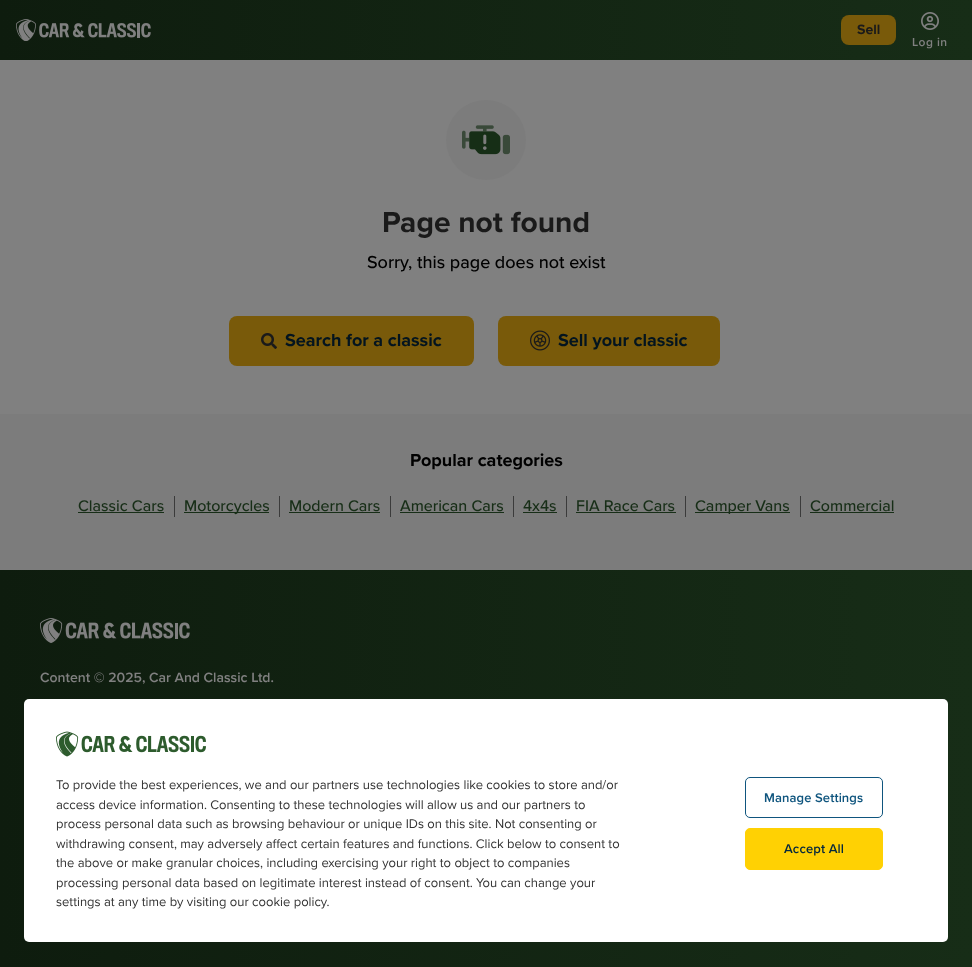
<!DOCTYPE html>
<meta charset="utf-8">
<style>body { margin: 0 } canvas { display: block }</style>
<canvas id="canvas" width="972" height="967"></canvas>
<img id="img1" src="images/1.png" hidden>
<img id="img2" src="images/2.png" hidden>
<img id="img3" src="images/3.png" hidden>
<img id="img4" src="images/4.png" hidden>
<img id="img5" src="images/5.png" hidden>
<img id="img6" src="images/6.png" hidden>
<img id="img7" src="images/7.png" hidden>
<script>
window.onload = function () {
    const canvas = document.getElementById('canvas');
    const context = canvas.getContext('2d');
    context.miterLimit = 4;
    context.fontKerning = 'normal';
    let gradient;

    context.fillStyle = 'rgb(128, 128, 128)';
    context.fillRect(0, 0, 972, 967);
    gradient = context.createLinearGradient(0, 30, 972, 30);
    gradient.addColorStop(0, 'rgb(14, 28, 14)');
    gradient.addColorStop(1, 'rgb(23, 45, 23)');
    context.fillStyle = gradient;
    context.fillRect(0, 0, 972, 60);
    context.drawImage(document.getElementById('img1'), 16, 19, 135, 22);
    context.fillStyle = 'rgb(121, 90, 10)';
    context.beginPath();
    context.roundRect(841, 15, 55, 30, 8);
    context.fill();
    context.drawImage(document.getElementById('img2'), 921, 12, 18, 18);
    context.fillStyle = 'rgb(124, 124, 124)';
    context.beginPath();
    context.arc(486, 140, 40, 0, 2 * Math.PI);
    context.fill();
    context.drawImage(document.getElementById('img3'), 462, 125, 48, 30);
    context.fillStyle = 'rgb(121, 90, 10)';
    context.beginPath();
    context.roundRect(229, 316, 245, 50, 8);
    context.fill();
    context.drawImage(document.getElementById('img4'), 261, 333, 16, 16);
    context.beginPath();
    context.roundRect(498, 316, 222, 50, 8);
    context.fill();
    context.drawImage(document.getElementById('img5'), 530, 330, 20, 21);
    context.fillStyle = 'rgb(124, 124, 124)';
    context.fillRect(0, 414, 972, 156);
    context.fillStyle = 'rgb(23, 46, 23)';
    context.fillRect(78, 512, 86, 1);
    context.fillStyle = 'rgb(59, 59, 59)';
    context.fillRect(174, 496, 1, 21);
    context.fillStyle = 'rgb(23, 46, 23)';
    context.fillRect(184, 512, 85, 1);
    context.fillStyle = 'rgb(59, 59, 59)';
    context.fillRect(279, 496, 1, 21);
    context.fillStyle = 'rgb(23, 46, 23)';
    context.fillRect(289, 512, 91, 1);
    context.fillStyle = 'rgb(59, 59, 59)';
    context.fillRect(390, 496, 1, 21);
    context.fillStyle = 'rgb(23, 46, 23)';
    context.fillRect(400, 512, 104, 1);
    context.fillStyle = 'rgb(59, 59, 59)';
    context.fillRect(513, 496, 1, 21);
    context.fillStyle = 'rgb(23, 46, 23)';
    context.fillRect(523, 512, 34, 1);
    context.fillStyle = 'rgb(59, 59, 59)';
    context.fillRect(566, 496, 1, 21);
    context.fillStyle = 'rgb(23, 46, 23)';
    context.fillRect(576, 512, 100, 1);
    context.fillStyle = 'rgb(59, 59, 59)';
    context.fillRect(685, 496, 1, 21);
    context.fillStyle = 'rgb(23, 46, 23)';
    context.fillRect(695, 512, 95, 1);
    context.fillStyle = 'rgb(59, 59, 59)';
    context.fillRect(800, 496, 1, 21);
    context.fillStyle = 'rgb(23, 46, 23)';
    context.fillRect(810, 512, 84, 1);
    gradient = context.createLinearGradient(0, 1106, 972, 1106);
    gradient.addColorStop(0, 'rgb(14, 28, 14)');
    gradient.addColorStop(1, 'rgb(23, 45, 23)');
    context.fillStyle = gradient;
    context.fillRect(0, 570, 972, 397);
    context.drawImage(document.getElementById('img6'), 40, 618, 150, 25);
    context.fillStyle = 'rgb(255, 255, 255)';
    context.beginPath();
    context.roundRect(24, 699, 924, 243, 5);
    context.fill();
    context.drawImage(document.getElementById('img7'), 56, 731, 150, 26);
    context.beginPath();
    context.roundRect(745.5, 777.5, 137, 40, 4.5);
    context.strokeStyle = 'rgb(15, 85, 126)';
    context.stroke();
    context.fillStyle = 'rgb(255, 209, 3)';
    context.beginPath();
    context.roundRect(745.5, 828.5, 137, 41, 4.5);
    context.fill();
    context.strokeStyle = 'rgb(255, 209, 3)';
    context.stroke();
    context.font = 'bold 14px Proxima Nova';
    context.fillStyle = 'rgb(26, 26, 26)';
    context.fillText('Sell', 857, 34);
    context.letterSpacing = '0.5px';
    context.font = '600 12px Proxima Nova';
    context.fillStyle = 'rgb(128, 128, 128)';
    context.fillText('Log in', 912, 46);
    context.letterSpacing = '0px';
    context.font = 'bold 30px Proxima Nova';
    context.fillStyle = 'rgb(26, 26, 26)';
    context.fillText('Page not found', 382, 232);
    context.font = '500 18px Proxima Nova';
    context.fillStyle = 'rgb(0, 0, 0)';
    context.fillText('Sorry, this page does not exist', 367, 268);
    context.font = 'bold 18px Proxima Nova';
    context.fillStyle = 'rgb(3, 20, 31)';
    context.fillText('Search for a classic', 285, 346);
    context.fillText('Sell your classic', 558, 346);
    context.fillStyle = 'rgb(0, 0, 0)';
    context.fillText('Popular categories', 410, 466);
    context.font = '500 16px Proxima Nova';
    context.fillStyle = 'rgb(23, 46, 23)';
    context.fillText('Classic Cars', 78, 511);
    context.fillText('Motorcycles', 184, 511);
    context.fillText('Modern Cars', 289, 511);
    context.fillText('American Cars', 400, 511);
    context.fillText('4x4s', 523, 511);
    context.fillText('FIA Race Cars', 576, 511);
    context.fillText('Camper Vans', 695, 511);
    context.fillText('Commercial', 810, 511);
    context.font = '600 14px Proxima Nova';
    context.fillStyle = 'rgb(128, 128, 128)';
    context.fillText('Content © 2025, Car And Classic Ltd.', 40, 682);
    context.font = '13px Proxima Nova';
    context.fillStyle = 'rgb(51, 51, 51)';
    context.fillText('To provide the best experiences, we and our partners use technologies like cookies to store and/or', 56, 789);
    context.fillText('access device information. Consenting to these technologies will allow us and our partners to', 56, 809);
    context.fillText('process personal data such as browsing behaviour or unique IDs on this site. Not consenting or', 56, 828);
    context.fillText('withdrawing consent, may adversely affect certain features and functions. Click below to consent to', 56, 848);
    context.fillText('the above or make granular choices, including exercising your right to object to companies', 56, 867);
    context.fillText('processing personal data based on legitimate interest instead of consent. You can change your', 56, 887);
    context.fillText('settings at any time by visiting our cookie policy.', 56, 906);
    context.letterSpacing = '0.1px';
    context.font = '600 13px Proxima Nova';
    context.fillStyle = 'rgb(15, 85, 126)';
    context.fillText('Manage Settings', 764, 802);
    context.fillStyle = 'rgb(5, 40, 61)';
    context.fillText('Accept All', 784, 853);
};
</script>
